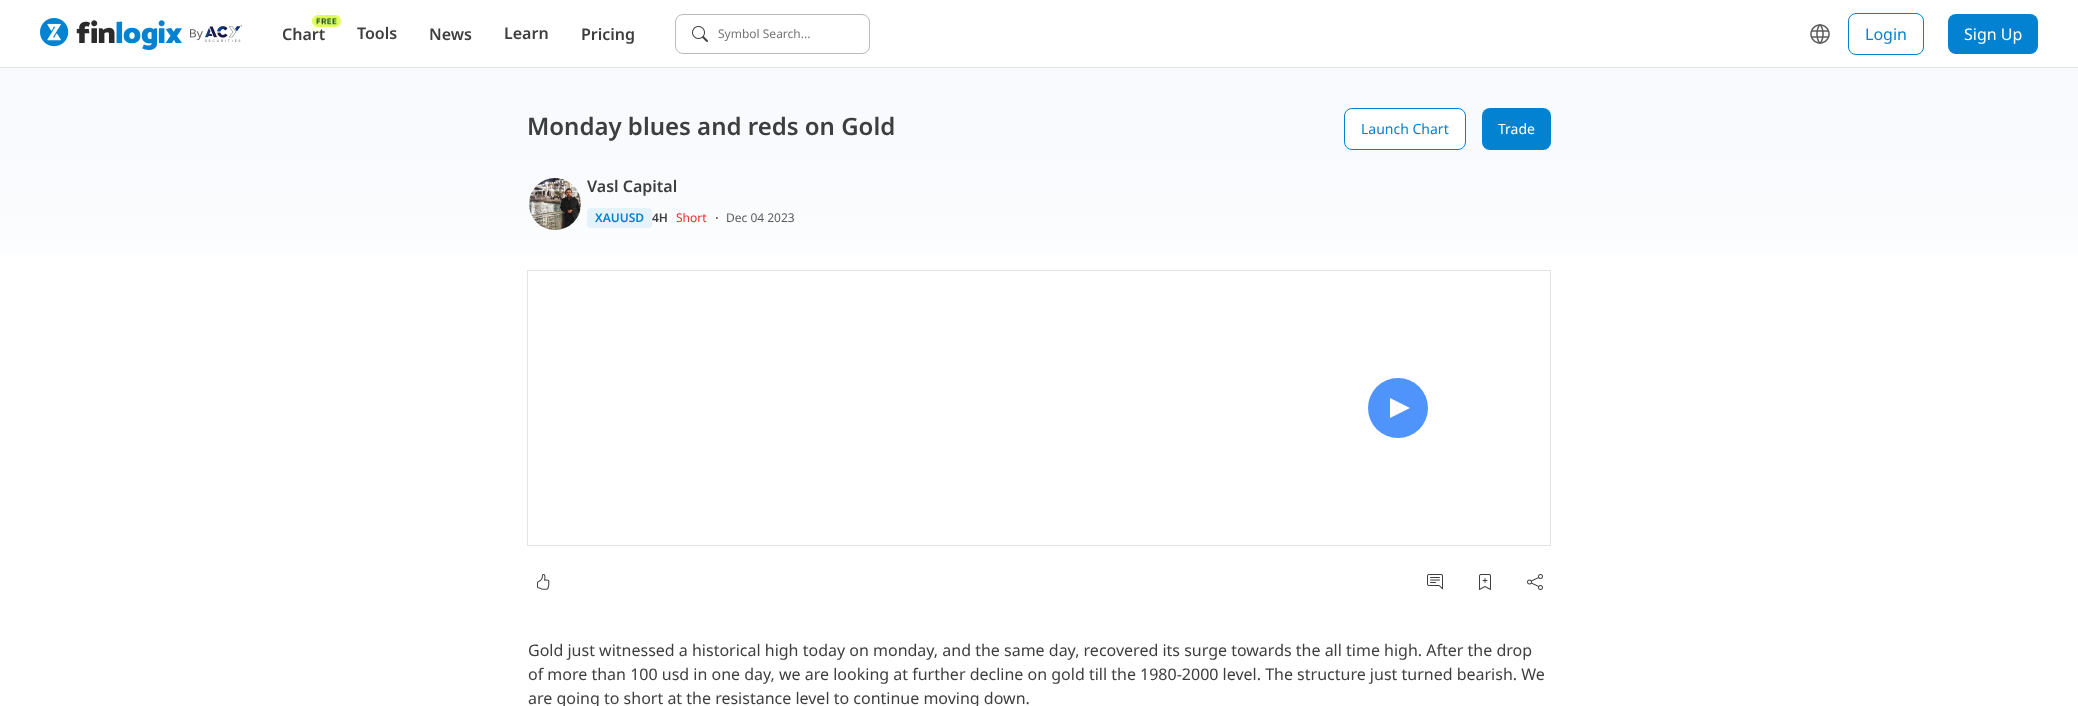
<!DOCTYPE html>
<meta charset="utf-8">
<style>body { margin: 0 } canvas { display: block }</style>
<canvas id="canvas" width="2078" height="706"></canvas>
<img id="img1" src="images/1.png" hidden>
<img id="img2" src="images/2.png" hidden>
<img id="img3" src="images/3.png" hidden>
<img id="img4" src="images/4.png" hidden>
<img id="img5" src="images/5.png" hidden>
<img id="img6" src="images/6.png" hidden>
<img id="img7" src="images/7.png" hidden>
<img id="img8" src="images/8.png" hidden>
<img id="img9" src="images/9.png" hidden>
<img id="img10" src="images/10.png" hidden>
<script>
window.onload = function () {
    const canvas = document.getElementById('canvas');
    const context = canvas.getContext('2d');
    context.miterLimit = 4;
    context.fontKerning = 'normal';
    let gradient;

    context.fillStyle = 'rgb(255, 255, 255)';
    context.fillRect(0, 0, 2078, 706);
    context.fillStyle = 'rgb(226, 229, 231)';
    context.fillRect(0, 67, 2078, 1);
    context.drawImage(document.getElementById('img1'), 40, 18, 142, 32);
    context.drawImage(document.getElementById('img2'), 190, 25, 52, 17);
    context.drawImage(document.getElementById('img3'), 312, 15, 29, 12);
    context.beginPath();
    context.roundRect(675.5, 14.5, 194, 39, 7.5);
    context.strokeStyle = 'rgb(187, 187, 187)';
    context.stroke();
    context.drawImage(document.getElementById('img4'), 692, 26, 16, 16);
    context.drawImage(document.getElementById('img5'), 1810, 24, 20, 20);
    context.beginPath();
    context.roundRect(1848.5, 13.5, 75, 41, 7.5);
    context.strokeStyle = 'rgb(2, 130, 208)';
    context.stroke();
    context.fillStyle = 'rgb(2, 130, 208)';
    context.beginPath();
    context.roundRect(1948, 14, 90, 40, 8);
    context.fill();
    gradient = context.createLinearGradient(1039, 68, 1039, 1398);
    gradient.addColorStop(0.07, 'rgb(248, 250, 253)');
    gradient.addColorStop(0.18, 'rgb(255, 255, 255)');
    context.fillStyle = gradient;
    context.fillRect(0, 68, 2078, 187);
    context.fillStyle = 'rgb(255, 255, 255)';
    context.beginPath();
    context.roundRect(1344.5, 108.5, 121, 41, 7.5);
    context.fill();
    context.stroke();
    context.fillStyle = 'rgb(2, 130, 208)';
    context.beginPath();
    context.roundRect(1482, 108, 69, 42, 8);
    context.fill();
    context.drawImage(document.getElementById('img6'), 529, 178, 52, 52);
    context.fillStyle = 'rgb(229, 242, 250)';
    context.beginPath();
    context.roundRect(587, 208, 65, 20, 4);
    context.fill();
    context.strokeStyle = 'rgb(226, 229, 231)';
    context.strokeRect(527.5, 270.5, 1023, 275);
    context.fillStyle = 'rgb(78, 148, 251)';
    context.beginPath();
    context.arc(1398, 408, 30, 0, 2 * Math.PI);
    context.fill();
    context.fillStyle = 'rgb(255, 255, 255)';
    context.beginPath();
    context.moveTo(1390, 398);
    context.lineTo(1390, 418);
    context.lineTo(1410, 408);
    context.closePath();
    context.fill();
    context.drawImage(document.getElementById('img7'), 537, 574, 13, 16);
    context.drawImage(document.getElementById('img8'), 1427, 574, 16, 16);
    context.drawImage(document.getElementById('img9'), 1479, 574, 12, 16);
    context.drawImage(document.getElementById('img10'), 1527, 574, 16, 16);
    context.font = '600 16px Noto Sans';
    context.fillStyle = 'rgb(62, 62, 62)';
    context.fillText('Chart', 282, 40);
    context.fillText('Tools', 357, 39);
    context.fillText('News', 429, 40);
    context.fillText('Learn', 504, 39);
    context.fillText('Pricing', 581, 40);
    context.font = '12px Noto Sans';
    context.fillStyle = 'rgb(117, 117, 117)';
    context.fillText('Symbol Search...', 718, 38);
    context.font = '16px Noto Sans';
    context.fillStyle = 'rgb(2, 130, 208)';
    context.fillText('Login', 1865, 40);
    context.fillStyle = 'rgb(255, 255, 255)';
    context.fillText('Sign Up', 1964, 40);
    context.font = '600 24px Noto Sans';
    context.fillStyle = 'rgb(62, 62, 62)';
    context.fillText('Monday blues and reds on Gold', 527, 135);
    context.font = '14px Noto Sans';
    context.fillStyle = 'rgb(2, 130, 208)';
    context.fillText('Launch Chart', 1361, 134);
    context.fillStyle = 'rgb(255, 255, 255)';
    context.fillText('Trade', 1498, 134);
    context.font = '600 16px Noto Sans';
    context.fillStyle = 'rgb(62, 62, 62)';
    context.fillText('Vasl Capital', 587, 192);
    context.font = '600 12px Noto Sans';
    context.fillStyle = 'rgb(2, 130, 208)';
    context.fillText('XAUUSD', 595, 222);
    context.fillStyle = 'rgb(62, 62, 62)';
    context.fillText('4H', 652, 222);
    context.font = '12px Noto Sans';
    context.fillStyle = 'rgb(233, 44, 44)';
    context.fillText('Short', 676, 222);
    context.font = '14px Noto Sans';
    context.fillStyle = 'rgb(62, 62, 62)';
    context.fillText('·', 715, 223);
    context.font = '12px Noto Sans';
    context.fillStyle = 'rgb(92, 92, 92)';
    context.fillText('Dec 04 2023', 726, 222);
    context.font = '16px Noto Sans';
    context.fillStyle = 'rgb(62, 62, 62)';
    context.fillText('Gold just witnessed a historical high today on monday, and the same day, recovered its surge towards the all time high. After the drop', 528, 656);
    context.fillText('of more than 100 usd in one day, we are looking at further decline on gold till the 1980-2000 level. The structure just turned bearish. We', 528, 680);
    context.fillText('are going to short at the resistance level to continue moving down.', 528, 704);
};
</script>
